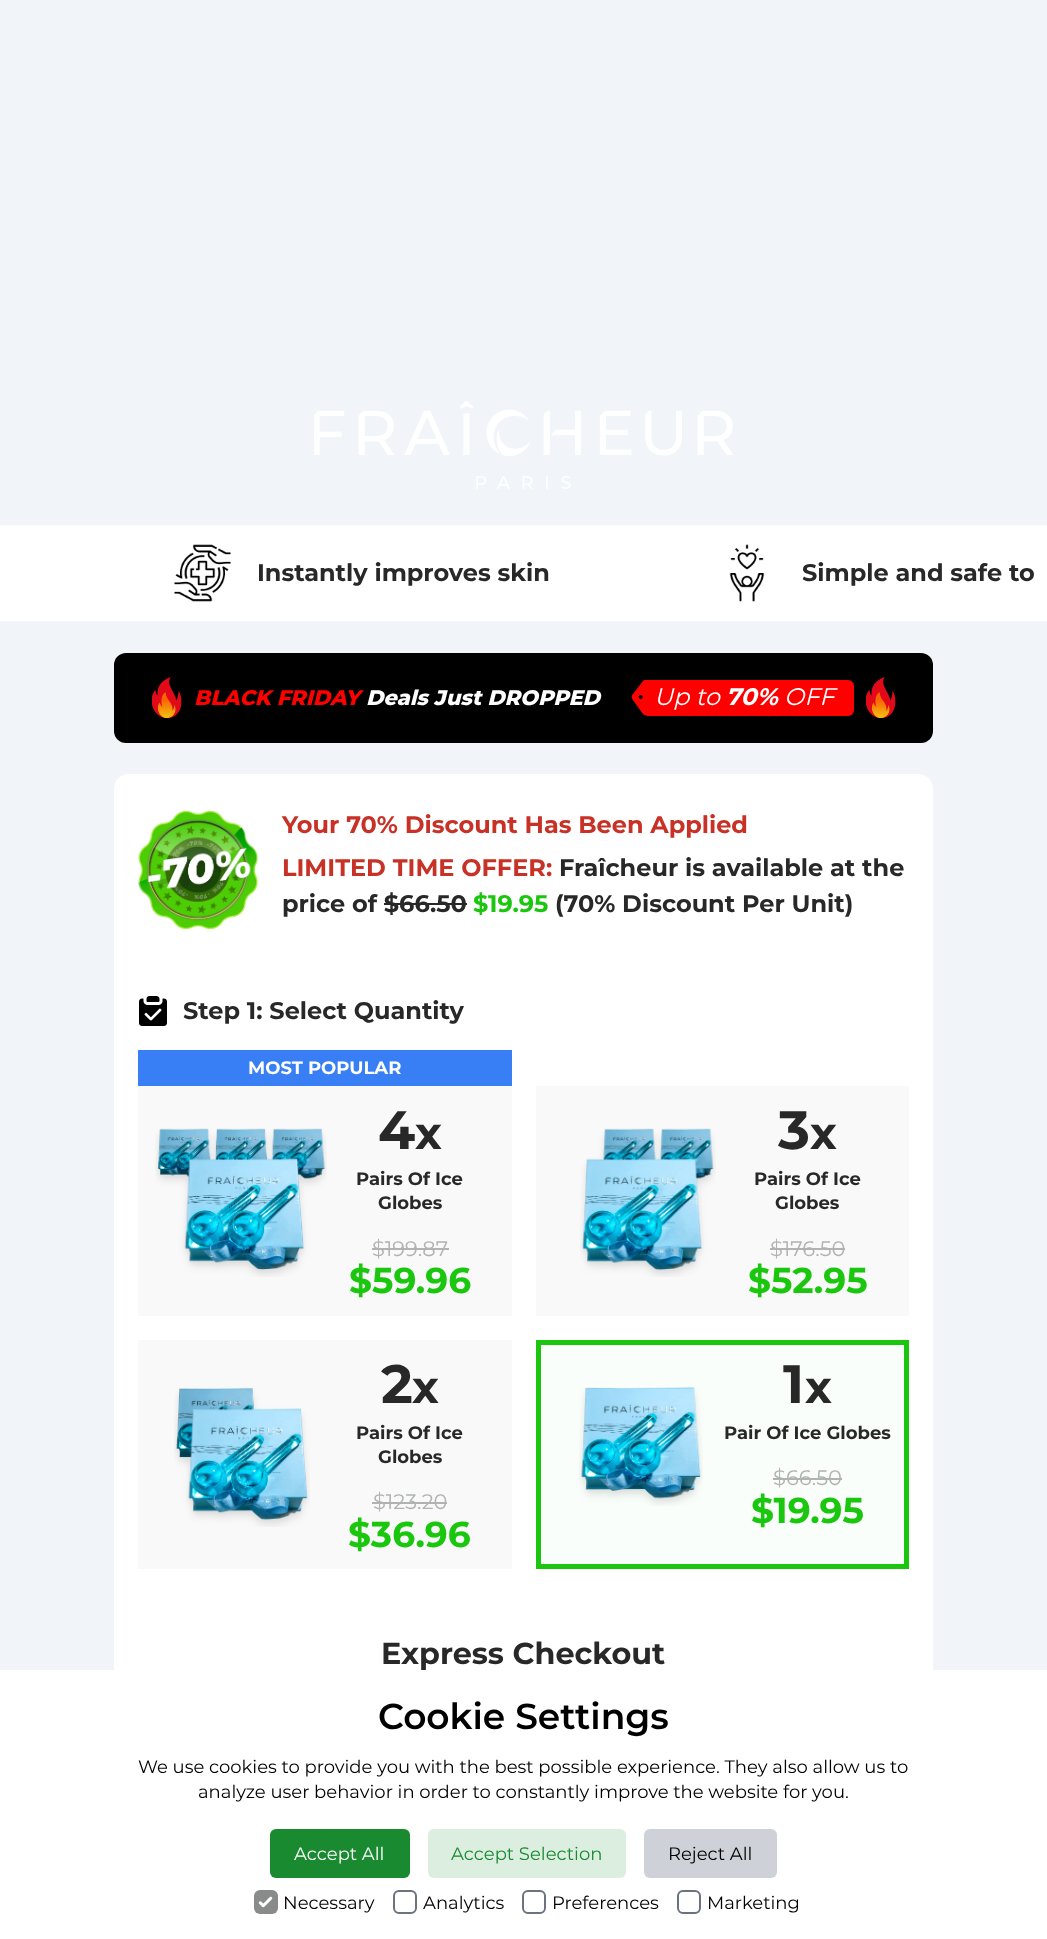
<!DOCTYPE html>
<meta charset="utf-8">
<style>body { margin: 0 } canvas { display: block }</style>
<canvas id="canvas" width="1047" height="1939"></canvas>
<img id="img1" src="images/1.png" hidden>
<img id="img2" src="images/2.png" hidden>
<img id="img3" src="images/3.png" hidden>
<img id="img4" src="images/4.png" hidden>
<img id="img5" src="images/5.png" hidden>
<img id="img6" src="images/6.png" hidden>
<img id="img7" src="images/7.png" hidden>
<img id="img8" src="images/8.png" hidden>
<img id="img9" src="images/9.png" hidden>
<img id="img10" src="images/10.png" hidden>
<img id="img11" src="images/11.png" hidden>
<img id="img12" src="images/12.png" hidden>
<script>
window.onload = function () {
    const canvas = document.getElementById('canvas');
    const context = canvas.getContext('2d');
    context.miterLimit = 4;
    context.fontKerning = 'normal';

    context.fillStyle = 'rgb(241, 244, 248)';
    context.fillRect(0, 0, 1047, 1939);
    context.drawImage(document.getElementById('img1'), 314, 401, 419, 88);
    context.fillStyle = 'rgb(255, 255, 255)';
    context.fillRect(0, 525, 1047, 96);
    context.drawImage(document.getElementById('img2'), 174, 544, 57, 58);
    context.drawImage(document.getElementById('img3'), 729, 544, 36, 58);
    context.fillStyle = 'rgb(0, 0, 0)';
    context.beginPath();
    context.roundRect(114, 653, 819, 90, 12);
    context.fill();
    context.drawImage(document.getElementById('img4'), 152, 677, 30, 41);
    context.drawImage(document.getElementById('img5'), 631, 680, 16, 36);
    context.fillStyle = 'rgb(255, 0, 0)';
    context.beginPath();
    context.roundRect(647, 680, 207, 36, [0, 6, 6, 0]);
    context.fill();
    context.drawImage(document.getElementById('img4'), 866, 677, 30, 41);
    context.fillStyle = 'rgb(255, 255, 255)';
    context.beginPath();
    context.moveTo(129, 774);
    context.lineTo(918, 774);
    context.bezierCurveTo(926.5, 774, 933, 780.5, 933, 789);
    context.lineTo(933, 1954);
    context.lineTo(114, 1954);
    context.lineTo(114, 789);
    context.bezierCurveTo(114, 780.5, 120.5, 774, 129, 774);
    context.closePath();
    context.fill();
    context.drawImage(document.getElementById('img6'), 138, 811, 120, 119);
    context.fillStyle = 'rgb(40, 40, 40)';
    context.fillRect(384, 903, 83, 2);
    context.drawImage(document.getElementById('img7'), 139, 996, 28, 30);
    context.fillStyle = 'rgb(56, 127, 245)';
    context.fillRect(138, 1050, 374, 36);
    context.fillStyle = 'rgb(249, 249, 249)';
    context.fillRect(138, 1086, 374, 230);
    context.drawImage(document.getElementById('img8'), 155, 1128, 172, 149);
    context.fillStyle = 'rgb(177, 178, 179)';
    context.fillRect(372, 1248, 77, 2);
    context.fillStyle = 'rgb(249, 249, 249)';
    context.fillRect(536, 1086, 373, 230);
    context.drawImage(document.getElementById('img9'), 580, 1128, 136, 149);
    context.fillStyle = 'rgb(177, 178, 179)';
    context.fillRect(770, 1248, 75, 2);
    context.fillStyle = 'rgb(249, 249, 249)';
    context.fillRect(138, 1340, 374, 229);
    context.drawImage(document.getElementById('img10'), 174, 1387, 136, 140);
    context.fillStyle = 'rgb(177, 178, 179)';
    context.fillRect(372, 1502, 75, 2);
    context.fillStyle = 'rgb(250, 254, 250)';
    context.beginPath();
    context.rect(538.5, 1342.5, 368, 224);
    context.fill();
    context.strokeStyle = 'rgb(26, 199, 14)';
    context.lineWidth = 5;
    context.stroke();
    context.drawImage(document.getElementById('img11'), 579, 1387, 124, 119);
    context.fillStyle = 'rgb(177, 178, 179)';
    context.fillRect(773, 1478, 69, 2);
    context.fillStyle = 'rgb(255, 255, 255)';
    context.fillRect(0, 1670, 1047, 269);
    context.fillStyle = 'rgb(25, 138, 48)';
    context.beginPath();
    context.roundRect(270, 1829, 140, 49, 6);
    context.fill();
    context.fillStyle = 'rgb(219, 238, 224)';
    context.beginPath();
    context.roundRect(428, 1829, 198, 49, 6);
    context.fill();
    context.fillStyle = 'rgb(206, 210, 216)';
    context.beginPath();
    context.roundRect(644, 1829, 133, 49, 6);
    context.fill();
    context.fillStyle = 'rgb(137, 139, 138)';
    context.beginPath();
    context.roundRect(254, 1890, 24, 24, 6);
    context.fill();
    context.drawImage(document.getElementById('img12'), 258, 1896, 15, 12);
    context.beginPath();
    context.roundRect(394, 1891, 22, 22, 5);
    context.strokeStyle = 'rgb(107, 114, 128)';
    context.lineWidth = 2;
    context.stroke();
    context.beginPath();
    context.roundRect(523, 1891, 22, 22, 5);
    context.stroke();
    context.beginPath();
    context.roundRect(678, 1891, 22, 22, 5);
    context.stroke();
    context.font = 'bold 24px Montserrat';
    context.fillStyle = 'rgb(40, 40, 40)';
    context.fillText('Instantly improves skin', 257, 581);
    context.fillText('Simple and safe to', 802, 581);
    context.font = 'italic 800 21px Montserrat';
    context.fillStyle = 'rgb(255, 0, 0)';
    context.fillText('BLACK FRIDAY', 194, 705);
    context.fillStyle = 'rgb(255, 255, 255)';
    context.fillText('Deals Just DROPPED', 366, 705);
    context.font = 'italic 24px Montserrat';
    context.fillText('Up to', 654, 705);
    context.font = 'italic bold 24px Montserrat';
    context.fillText('70%', 726, 705);
    context.font = 'italic 24px Montserrat';
    context.fillText('OFF', 784, 705);
    context.font = 'bold 24px Montserrat';
    context.fillStyle = 'rgb(199, 49, 38)';
    context.fillText('Your 70% Discount Has Been Applied', 282, 833);
    context.fillStyle = 'rgb(40, 40, 40)';
    context.fillText('Fraîcheur is available at the', 559, 876);
    context.fillText('price of $66.50', 282, 912);
    context.fillStyle = 'rgb(26, 199, 14)';
    context.fillText('$19.95', 473, 912);
    context.fillStyle = 'rgb(40, 40, 40)';
    context.fillText('(70% Discount Per Unit)', 555, 912);
    context.fillStyle = 'rgb(199, 49, 38)';
    context.fillText('LIMITED TIME OFFER:', 282, 876);
    context.fillStyle = 'rgb(40, 40, 40)';
    context.fillText('Step 1: Select Quantity', 183, 1019);
    context.font = 'bold 18px Montserrat';
    context.fillStyle = 'rgb(255, 255, 255)';
    context.fillText('MOST POPULAR', 248, 1074);
    context.font = 'bold 54px Montserrat';
    context.fillStyle = 'rgb(40, 40, 40)';
    context.fillText('4', 378, 1149);
    context.font = 'bold 45px Montserrat';
    context.fillText('x', 415, 1149);
    context.font = 'bold 18px Montserrat';
    context.fillText('Pairs Of Ice', 356, 1185);
    context.fillText('Globes', 378, 1209);
    context.font = '21px Montserrat';
    context.fillStyle = 'rgb(177, 178, 179)';
    context.fillText('$199.87', 372, 1256);
    context.font = 'bold 36px Montserrat';
    context.fillStyle = 'rgb(26, 199, 14)';
    context.fillText('$59.96', 349, 1293);
    context.font = 'bold 54px Montserrat';
    context.fillStyle = 'rgb(40, 40, 40)';
    context.fillText('3', 778, 1149);
    context.font = 'bold 45px Montserrat';
    context.fillText('x', 810, 1149);
    context.font = 'bold 18px Montserrat';
    context.fillText('Pairs Of Ice', 754, 1185);
    context.fillText('Globes', 775, 1209);
    context.font = '21px Montserrat';
    context.fillStyle = 'rgb(177, 178, 179)';
    context.fillText('$176.50', 770, 1256);
    context.font = 'bold 36px Montserrat';
    context.fillStyle = 'rgb(26, 199, 14)';
    context.fillText('$52.95', 748, 1293);
    context.font = 'bold 54px Montserrat';
    context.fillStyle = 'rgb(40, 40, 40)';
    context.fillText('2', 381, 1403);
    context.font = 'bold 45px Montserrat';
    context.fillText('x', 412, 1403);
    context.font = 'bold 18px Montserrat';
    context.fillText('Pairs Of Ice', 356, 1439);
    context.fillText('Globes', 378, 1463);
    context.font = '21px Montserrat';
    context.fillStyle = 'rgb(177, 178, 179)';
    context.fillText('$123.20', 373, 1509);
    context.font = 'bold 36px Montserrat';
    context.fillStyle = 'rgb(26, 199, 14)';
    context.fillText('$36.96', 348, 1547);
    context.font = 'bold 54px Montserrat';
    context.fillStyle = 'rgb(40, 40, 40)';
    context.fillText('1', 783, 1403);
    context.font = 'bold 45px Montserrat';
    context.fillText('x', 805, 1403);
    context.font = 'bold 18px Montserrat';
    context.fillText('Pair Of Ice Globes', 724, 1439);
    context.font = '21px Montserrat';
    context.fillStyle = 'rgb(177, 178, 179)';
    context.fillText('$66.50', 773, 1485);
    context.font = 'bold 36px Montserrat';
    context.fillStyle = 'rgb(26, 199, 14)';
    context.fillText('$19.95', 751, 1523);
    context.font = 'bold 30.25px Montserrat';
    context.fillStyle = 'rgb(40, 40, 40)';
    context.fillText('Express Checkout', 381, 1664);
    context.font = '600 36px Montserrat';
    context.fillStyle = 'rgb(0, 0, 0)';
    context.fillText('Cookie Settings', 378, 1729);
    context.font = '18px Montserrat';
    context.fillText('We use cookies to provide you with the best possible experience. They also allow us to', 138, 1773);
    context.fillText('analyze user behavior in order to constantly improve the website for you.', 198, 1798);
    context.fillStyle = 'rgb(255, 255, 255)';
    context.fillText('Accept All', 294, 1860);
    context.fillStyle = 'rgb(25, 138, 48)';
    context.fillText('Accept Selection', 451, 1860);
    context.fillStyle = 'rgb(0, 0, 0)';
    context.fillText('Reject All', 668, 1860);
    context.fillText('Necessary', 283, 1909);
    context.fillText('Analytics', 423, 1909);
    context.fillText('Preferences', 552, 1909);
    context.fillText('Marketing', 707, 1909);
};
</script>
